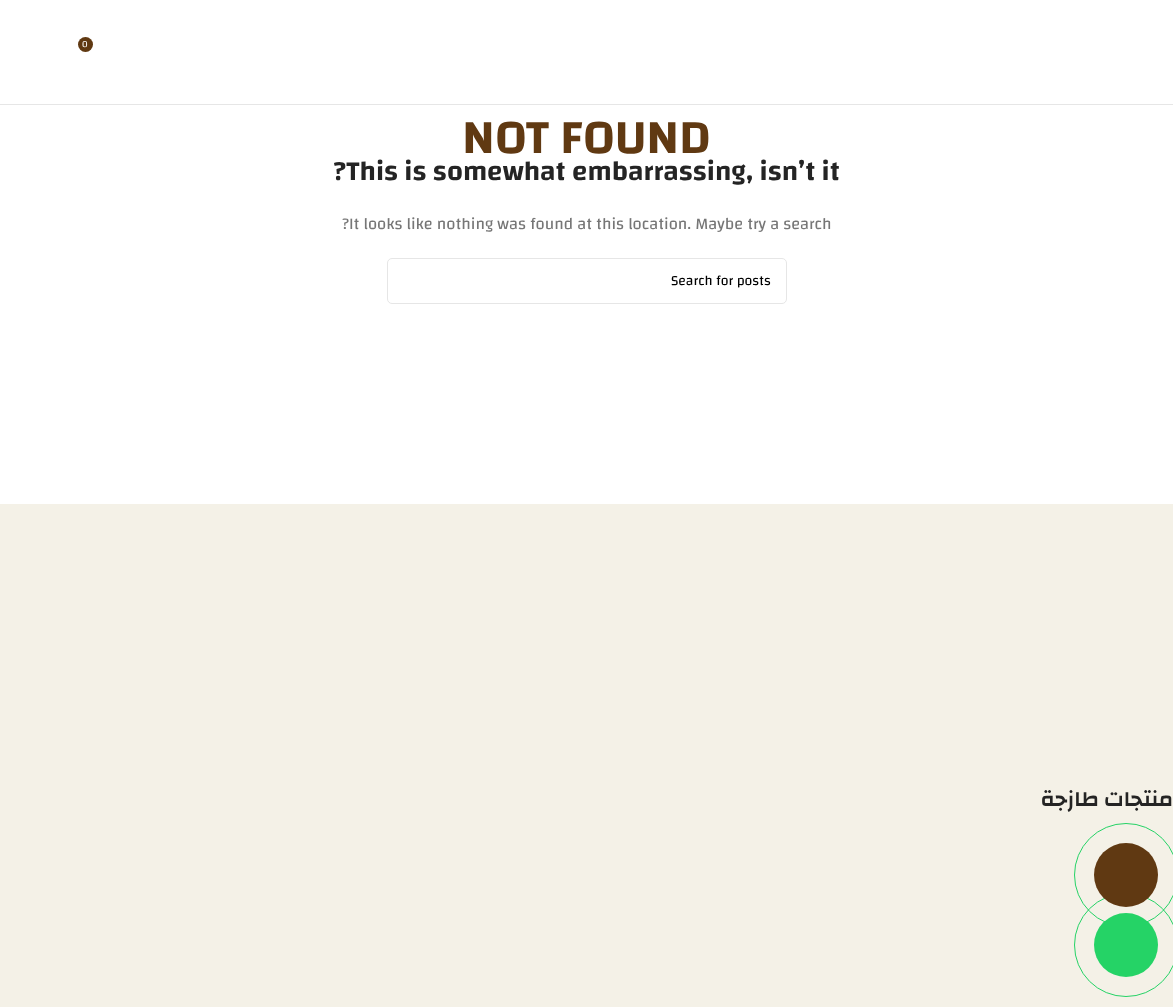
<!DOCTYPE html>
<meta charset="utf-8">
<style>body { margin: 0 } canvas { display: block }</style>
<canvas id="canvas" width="1173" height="1007"></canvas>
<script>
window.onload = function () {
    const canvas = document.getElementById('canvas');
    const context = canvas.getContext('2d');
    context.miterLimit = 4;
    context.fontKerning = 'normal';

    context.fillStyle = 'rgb(255, 255, 255)';
    context.fillRect(0, 0, 1173, 1007);
    context.fillStyle = 'rgba(129, 129, 129, 0.2)';
    context.fillRect(0, 104, 1173, 1);
    context.fillStyle = 'rgb(96, 57, 18)';
    context.beginPath();
    context.arc(85.5, 44.5, 7.5, 0, 2 * Math.PI);
    context.fill();
    context.beginPath();
    context.roundRect(387.5, 258.5, 399, 45, 4.5);
    context.strokeStyle = 'rgb(230, 230, 230)';
    context.stroke();
    context.fillStyle = 'rgb(244, 241, 231)';
    context.fillRect(0, 504, 1173, 503);
    context.fillStyle = 'rgb(37, 211, 102)';
    context.beginPath();
    context.arc(1126, 945, 32, 0, 2 * Math.PI);
    context.fill();
    context.beginPath();
    context.arc(1126, 945, 51.5, 0, 2 * Math.PI);
    context.strokeStyle = 'rgb(37, 211, 102)';
    context.stroke();
    context.fillStyle = 'rgb(96, 57, 18)';
    context.beginPath();
    context.arc(1126, 875, 32, 0, 2 * Math.PI);
    context.fill();
    context.beginPath();
    context.arc(1126, 875, 51.5, 0, 2 * Math.PI);
    context.stroke();
    context.font = '9px Changa';
    context.fillStyle = 'rgb(255, 255, 255)';
    context.fillText('0', 82, 47);
    context.font = '600 49.25px Changa';
    context.fillStyle = 'rgb(96, 57, 18)';
    context.fillText('NOT FOUND', 462, 153);
    context.font = '600 28px Changa';
    context.fillStyle = 'rgb(36, 36, 36)';
    context.fillText('?This is somewhat embarrassing, isn’t it', 333, 180);
    context.font = '16.5px Changa';
    context.fillStyle = 'rgb(118, 118, 118)';
    context.fillText('?It looks like nothing was found at this location. Maybe try a search', 342, 229);
    context.font = '14px Changa';
    context.fillStyle = 'rgb(0, 0, 0)';
    context.fillText('Search for posts', 671, 285);
    context.direction = 'rtl';
    context.font = '600 22px Changa';
    context.fillStyle = 'rgb(36, 36, 36)';
    context.fillText('منتجات طازجة', 1173, 806);
};
</script>
